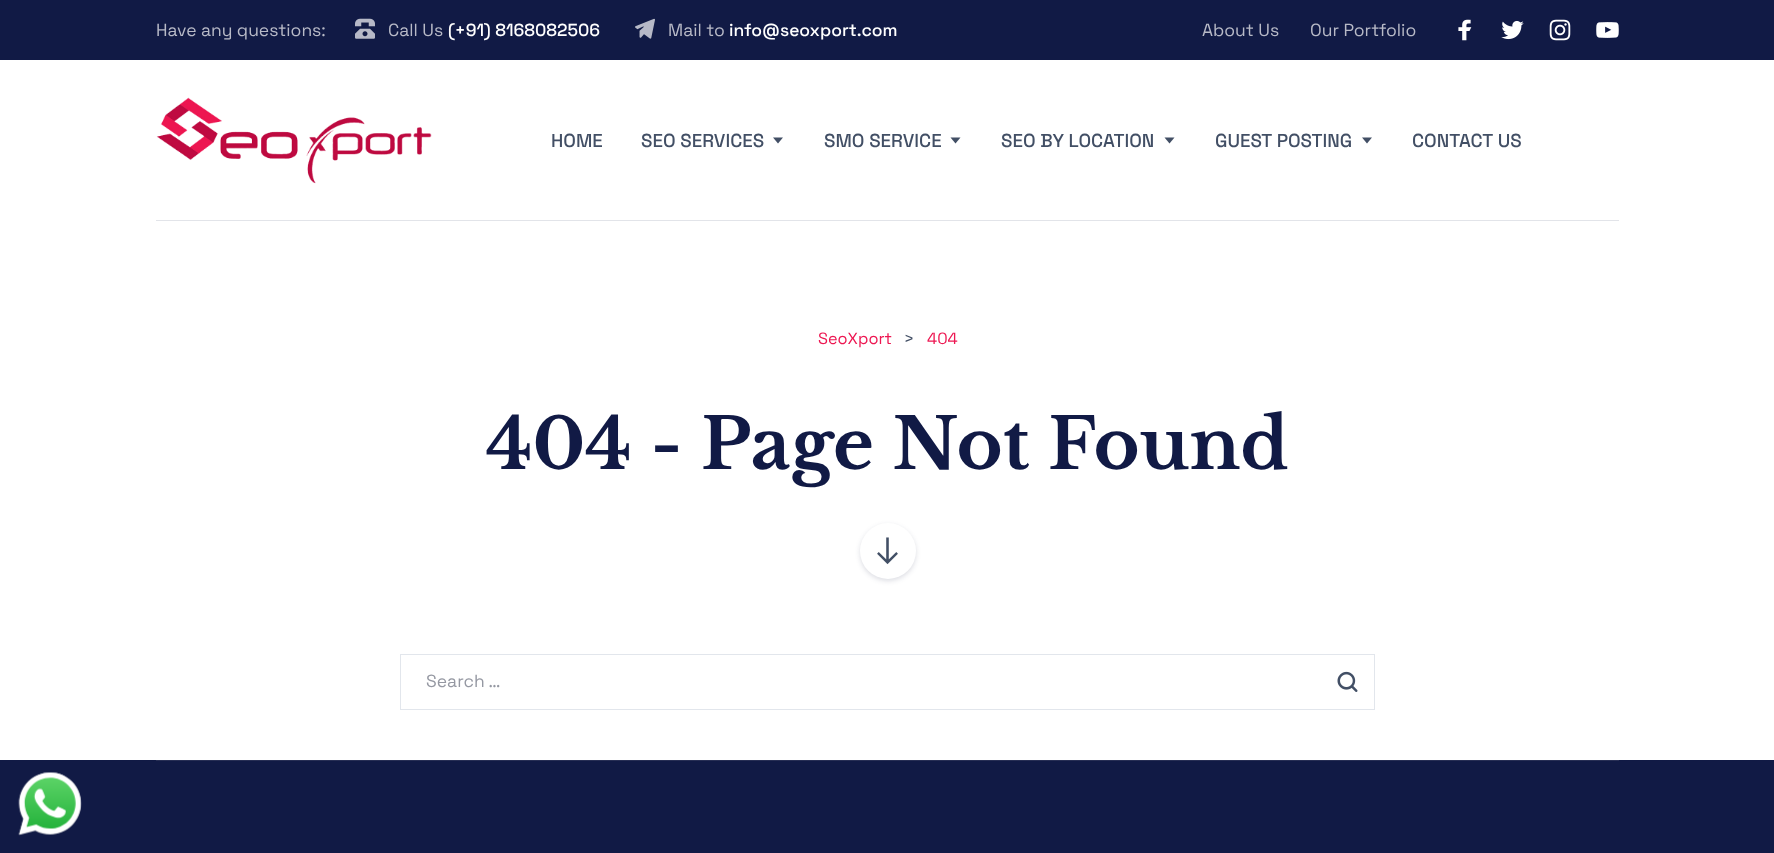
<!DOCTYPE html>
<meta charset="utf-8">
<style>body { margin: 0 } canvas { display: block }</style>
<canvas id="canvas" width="1774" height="853"></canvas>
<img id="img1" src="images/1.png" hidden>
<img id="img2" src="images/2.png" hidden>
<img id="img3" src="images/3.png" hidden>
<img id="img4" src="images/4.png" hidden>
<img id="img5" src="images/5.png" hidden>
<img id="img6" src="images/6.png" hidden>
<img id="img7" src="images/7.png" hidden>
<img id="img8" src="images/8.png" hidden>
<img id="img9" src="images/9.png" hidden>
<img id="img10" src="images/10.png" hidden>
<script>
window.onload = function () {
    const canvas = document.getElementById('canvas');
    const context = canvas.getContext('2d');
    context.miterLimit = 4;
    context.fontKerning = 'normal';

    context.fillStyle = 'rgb(255, 255, 255)';
    context.fillRect(0, 0, 1774, 853);
    context.fillStyle = 'rgb(17, 26, 69)';
    context.fillRect(0, 0, 1774, 60);
    context.drawImage(document.getElementById('img1'), 355, 18, 20, 21);
    context.drawImage(document.getElementById('img2'), 635, 18, 20, 21);
    context.drawImage(document.getElementById('img3'), 1458, 19, 14, 22);
    context.drawImage(document.getElementById('img4'), 1501, 20, 23, 20);
    context.drawImage(document.getElementById('img5'), 1549, 19, 22, 22);
    context.drawImage(document.getElementById('img6'), 1596, 22, 23, 16);
    context.drawImage(document.getElementById('img7'), 156, 97, 276, 87);
    context.fillStyle = 'rgb(66, 79, 101)';
    context.beginPath();
    context.moveTo(773, 137.5);
    context.lineTo(778, 143.5);
    context.lineTo(783, 137.5);
    context.closePath();
    context.fill();
    context.beginPath();
    context.moveTo(950.5, 137.5);
    context.lineTo(955.5, 143.5);
    context.lineTo(960.5, 137.5);
    context.closePath();
    context.fill();
    context.beginPath();
    context.moveTo(1164.5, 137.5);
    context.lineTo(1169.5, 143.5);
    context.lineTo(1174.5, 137.5);
    context.closePath();
    context.fill();
    context.beginPath();
    context.moveTo(1362, 137.5);
    context.lineTo(1367, 143.5);
    context.lineTo(1372, 137.5);
    context.closePath();
    context.fill();
    context.fillStyle = 'rgb(226, 228, 233)';
    context.fillRect(156, 220, 1463, 1);
    context.fillStyle = 'rgba(17, 26, 69, 0.15)';
    context.filter = 'blur(2.5px)';
    context.beginPath();
    context.roundRect(860, 525, 56, 56, 28);
    context.fill();
    context.filter = 'none';
    context.fillStyle = 'rgb(255, 255, 255)';
    context.beginPath();
    context.arc(888, 551, 28, 0, 2 * Math.PI);
    context.fill();
    context.drawImage(document.getElementById('img8'), 877, 537, 21, 28);
    context.strokeStyle = 'rgb(226, 230, 236)';
    context.strokeRect(400.5, 654.5, 974, 55);
    context.drawImage(document.getElementById('img9'), 1337, 671, 21, 21);
    context.fillStyle = 'rgb(17, 26, 69)';
    context.fillRect(0, 760, 1774, 93);
    context.fillStyle = 'rgb(39, 46, 84)';
    context.fillRect(156, 760, 1463, 1);
    context.drawImage(document.getElementById('img10'), 18, 772, 64, 64);
    context.font = '17.5px Space Grotesk';
    context.fillStyle = 'rgb(184, 186, 199)';
    context.fillText('Have any questions:', 156, 36);
    context.fillText('Call Us', 388, 36);
    context.font = '500 17.5px Space Grotesk';
    context.fillStyle = 'rgb(255, 255, 255)';
    context.fillText('(+91) 8168082506', 448, 36);
    context.font = '17.5px Space Grotesk';
    context.fillStyle = 'rgb(184, 186, 199)';
    context.fillText('Mail to', 668, 36);
    context.font = '500 17.5px Space Grotesk';
    context.fillStyle = 'rgb(255, 255, 255)';
    context.fillText('info@seoxport.com', 729, 36);
    context.font = '17.5px Space Grotesk';
    context.fillStyle = 'rgb(184, 186, 199)';
    context.fillText('About Us', 1202, 36);
    context.fillText('Our Portfolio', 1310, 36);
    context.font = '500 18.75px Space Grotesk';
    context.fillStyle = 'rgb(66, 79, 101)';
    context.fillText('HOME', 551, 147);
    context.fillText('SEO SERVICES', 641, 147);
    context.fillText('SMO SERVICE', 824, 147);
    context.fillText('SEO BY LOCATION', 1001, 147);
    context.fillText('GUEST POSTING', 1215, 147);
    context.fillText('CONTACT US', 1412, 147);
    context.font = '16.25px Space Grotesk';
    context.fillStyle = 'rgb(237, 22, 81)';
    context.fillText('SeoXport', 818, 344);
    context.fillStyle = 'rgb(66, 79, 101)';
    context.fillText('>', 904, 344);
    context.fillStyle = 'rgb(237, 22, 81)';
    context.fillText('404', 927, 344);
    context.font = 'bold 70px Libre Baskerville';
    context.fillStyle = 'rgb(17, 26, 69)';
    context.fillText('404 - Page Not Found', 486, 469);
    context.font = '17.5px Space Grotesk';
    context.fillStyle = 'rgb(149, 152, 162)';
    context.fillText('Search …', 426, 687);
};
</script>
